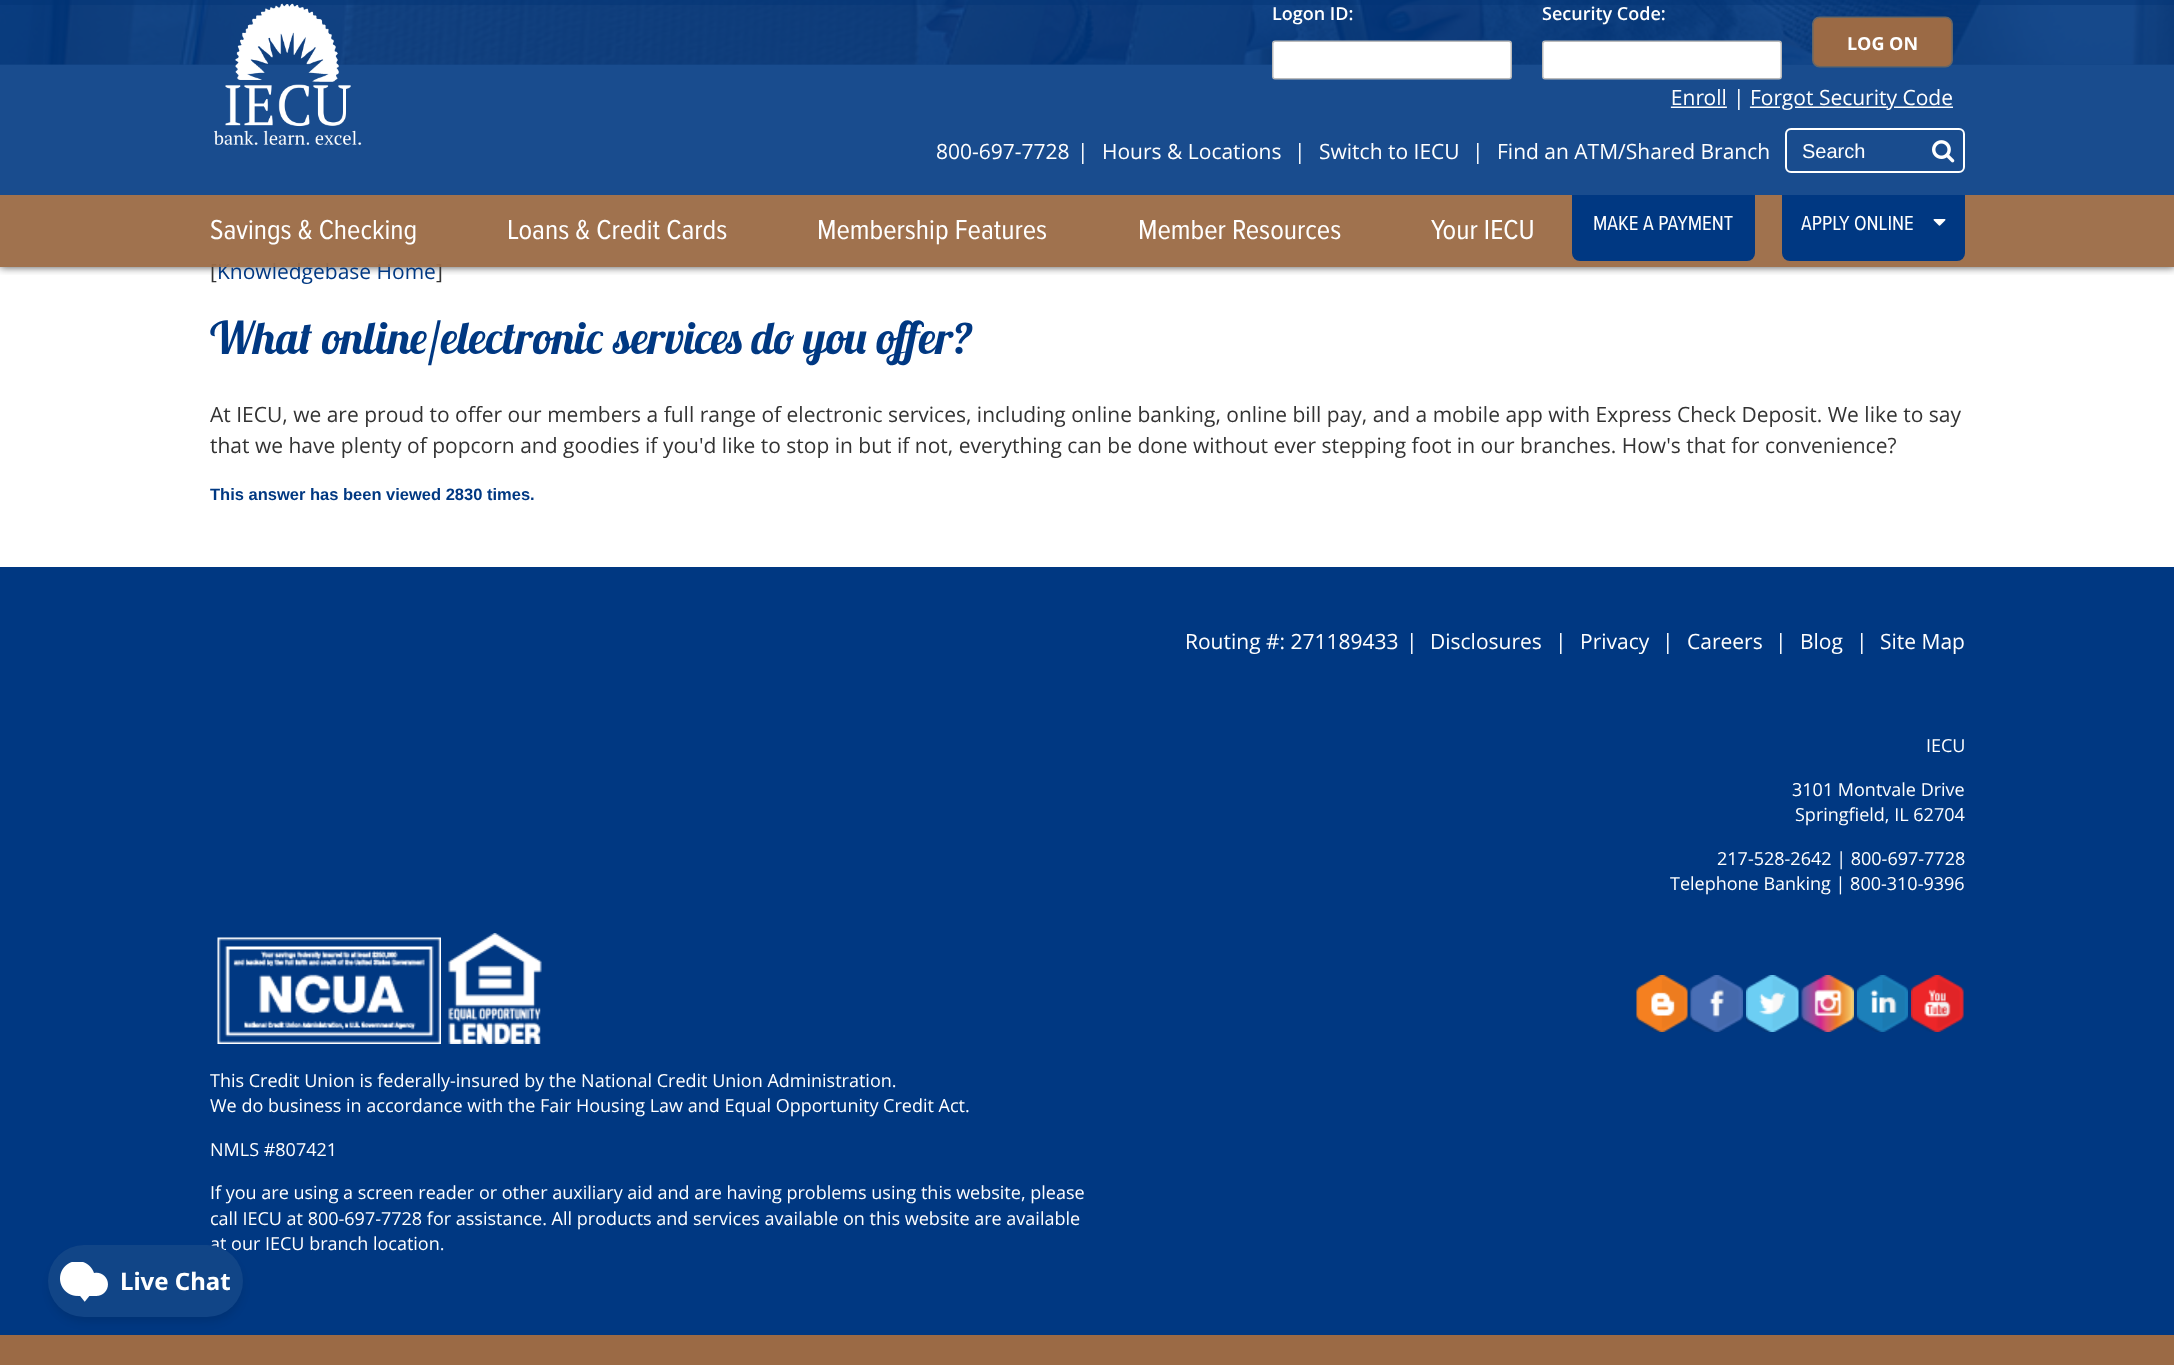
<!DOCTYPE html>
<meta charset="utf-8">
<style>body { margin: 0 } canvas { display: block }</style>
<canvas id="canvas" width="2174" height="1365"></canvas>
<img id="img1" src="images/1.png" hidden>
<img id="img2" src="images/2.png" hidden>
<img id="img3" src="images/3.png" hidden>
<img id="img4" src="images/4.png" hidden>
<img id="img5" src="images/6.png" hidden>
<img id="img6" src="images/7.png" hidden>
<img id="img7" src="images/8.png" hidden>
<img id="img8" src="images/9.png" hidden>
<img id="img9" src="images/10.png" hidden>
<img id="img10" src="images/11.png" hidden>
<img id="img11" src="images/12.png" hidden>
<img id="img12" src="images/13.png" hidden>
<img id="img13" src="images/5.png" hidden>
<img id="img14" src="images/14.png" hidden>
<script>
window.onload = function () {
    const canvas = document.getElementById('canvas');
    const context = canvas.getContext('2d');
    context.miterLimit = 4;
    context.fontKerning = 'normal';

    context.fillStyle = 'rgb(255, 255, 255)';
    context.fillRect(0, 0, 2174, 1365);
    context.fillStyle = 'rgb(192, 192, 192)';
    context.fillRect(0, 64, 2174, 1);
    context.drawImage(document.getElementById('img1'), 0, 0, 2174, 65);
    context.fillStyle = 'rgba(0, 0, 0, 0.4)';
    context.fillRect(0, 0, 2174, 5);
    context.save();
    context.beginPath();
    context.rect(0, 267, 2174, 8);
    context.clip();
    context.fillStyle = 'rgba(0, 0, 0, 0.7)';
    context.filter = 'blur(4px)';
    context.beginPath();
    context.rect(0, 0, 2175, 267);
    context.fill();
    context.filter = 'none';
    context.restore();
    context.fillStyle = 'rgba(0, 57, 130, 0.9)';
    context.fillRect(0, 0, 2174, 195);
    context.drawImage(document.getElementById('img2'), 214, 3, 148, 142);
    context.drawImage(document.getElementById('img3'), 1272, 6, 681, 104);
    context.beginPath();
    context.roundRect(1786, 129, 178, 43, 5);
    context.strokeStyle = 'rgb(255, 255, 255)';
    context.lineWidth = 2;
    context.stroke();
    context.drawImage(document.getElementById('img4'), 1932, 140, 23, 23);
    context.fillStyle = 'rgb(0, 56, 130)';
    context.fillRect(0, 567, 2174, 768);
    context.fillStyle = 'rgb(155, 106, 69)';
    context.fillRect(0, 1335, 2174, 30);
    context.drawImage(document.getElementById('img5'), 1636, 975, 52, 57);
    context.drawImage(document.getElementById('img6'), 1690, 975, 53, 57);
    context.drawImage(document.getElementById('img7'), 1746, 975, 53, 57);
    context.drawImage(document.getElementById('img8'), 1801, 975, 53, 57);
    context.drawImage(document.getElementById('img9'), 1857, 975, 51, 57);
    context.drawImage(document.getElementById('img10'), 1911, 975, 53, 57);
    context.drawImage(document.getElementById('img11'), 217, 937, 224, 107);
    context.drawImage(document.getElementById('img12'), 448, 933, 94, 111);
    context.fillStyle = 'rgba(0, 0, 0, 0.1)';
    context.filter = 'blur(4.5px)';
    context.beginPath();
    context.roundRect(50, 1253, 192, 69, 34.5);
    context.fill();
    context.filter = 'none';
    context.font = '21px Open Sans';
    context.fillStyle = 'rgb(255, 255, 255)';
    context.fillText('800-697-7728', 936, 159);
    context.fillText('|', 1077, 159);
    context.fillText('Hours & Locations', 1102, 159);
    context.fillText('|', 1294, 159);
    context.fillText('Switch to IECU', 1319, 159);
    context.fillText('|', 1472, 159);
    context.fillText('Find an ATM/Shared Branch', 1497, 159);
    context.font = '20px Liberation Sans';
    context.fillText('Search', 1802, 158);
    context.font = '21px Open Sans';
    context.fillStyle = 'rgb(51, 51, 51)';
    context.fillText('[', 210, 279);
    context.fillStyle = 'rgb(0, 56, 130)';
    context.fillText('Knowledgebase Home', 217, 279);
    context.fillStyle = 'rgb(51, 51, 51)';
    context.fillText(']', 436, 279);
    context.fillStyle = 'rgba(155, 106, 68, 0.95)';
    context.fillRect(0, 195, 2174, 72);
    context.fillStyle = 'rgb(0, 56, 130)';
    context.beginPath();
    context.roundRect(1782, 195, 183, 66, [0, 0, 8, 8]);
    context.fill();
    context.drawImage(document.getElementById('img13'), 1933, 219, 13, 7);
    context.font = '21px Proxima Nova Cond';
    context.fillStyle = 'rgb(255, 255, 255)';
    context.fillText('APPLY ONLINE', 1801, 230);
    context.fillStyle = 'rgb(0, 56, 130)';
    context.beginPath();
    context.roundRect(1572, 195, 183, 66, [0, 0, 8, 8]);
    context.fill();
    context.fillStyle = 'rgb(255, 255, 255)';
    context.fillText('MAKE A PAYMENT', 1593, 230);
    context.font = '28.5px Proxima Nova Cond';
    context.fillText('Your IECU', 1431, 239);
    context.fillText('Member Resources', 1138, 239);
    context.fillText('Membership Features', 817, 239);
    context.fillText('Loans & Credit Cards', 507, 239);
    context.fillText('Savings & Checking', 210, 239);
    context.font = '45px "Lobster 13"';
    context.fillStyle = 'rgb(0, 56, 130)';
    context.fillText('What online/electronic services do you offer?', 210, 354);
    context.font = '21px Open Sans';
    context.fillStyle = 'rgb(51, 51, 51)';
    context.fillText('At IECU, we are proud to offer our members a full range of electronic services, including online banking, online bill pay, and a mobile app with Express Check Deposit. We like to say', 210, 422);
    context.fillText('that we have plenty of popcorn and goodies if you\'d like to stop in but if not, everything can be done without ever stepping foot in our branches. How\'s that for convenience?', 210, 453);
    context.font = 'bold 16.5px Liberation Sans';
    context.fillStyle = 'rgb(0, 56, 130)';
    context.fillText('This answer has been viewed 2830 times.', 210, 500);
    context.font = '21px Open Sans';
    context.fillStyle = 'rgb(255, 255, 255)';
    context.fillText('Routing #: 271189433', 1185, 649);
    context.fillText('|', 1406, 649);
    context.fillText('Disclosures', 1430, 649);
    context.fillText('|', 1555, 649);
    context.fillText('Privacy', 1580, 649);
    context.fillText('|', 1662, 649);
    context.fillText('Careers', 1687, 649);
    context.fillText('|', 1775, 649);
    context.fillText('Blog', 1800, 649);
    context.fillText('|', 1856, 649);
    context.fillText('Site Map', 1880, 649);
    context.font = '18px Open Sans';
    context.fillText('IECU', 1926, 752);
    context.fillText('3101 Montvale Drive', 1792, 796);
    context.fillText('Springfield, IL 62704', 1795, 821);
    context.fillText('217-528-2642 | 800-697-7728', 1717, 865);
    context.fillText('Telephone Banking | 800-310-9396', 1670, 890);
    context.fillText('This Credit Union is federally-insured by the National Credit Union Administration.', 210, 1087);
    context.fillText('We do business in accordance with the Fair Housing Law and Equal Opportunity Credit Act.', 210, 1112);
    context.fillText('NMLS #807421', 210, 1156);
    context.fillText('If you are using a screen reader or other auxiliary aid and are having problems using this website, please', 210, 1199);
    context.fillText('call IECU at 800-697-7728 for assistance. All products and services available on this website are available', 210, 1225);
    context.fillText('at our IECU branch location.', 210, 1250);
    context.fillStyle = 'rgb(17, 69, 135)';
    context.beginPath();
    context.roundRect(48, 1245, 195, 72, 36);
    context.fill();
    context.drawImage(document.getElementById('img14'), 60, 1262, 48, 40);
    context.font = 'bold 24px Noto Sans';
    context.fillStyle = 'rgb(255, 255, 255)';
    context.fillText('Live Chat', 120, 1290);
};
</script>
